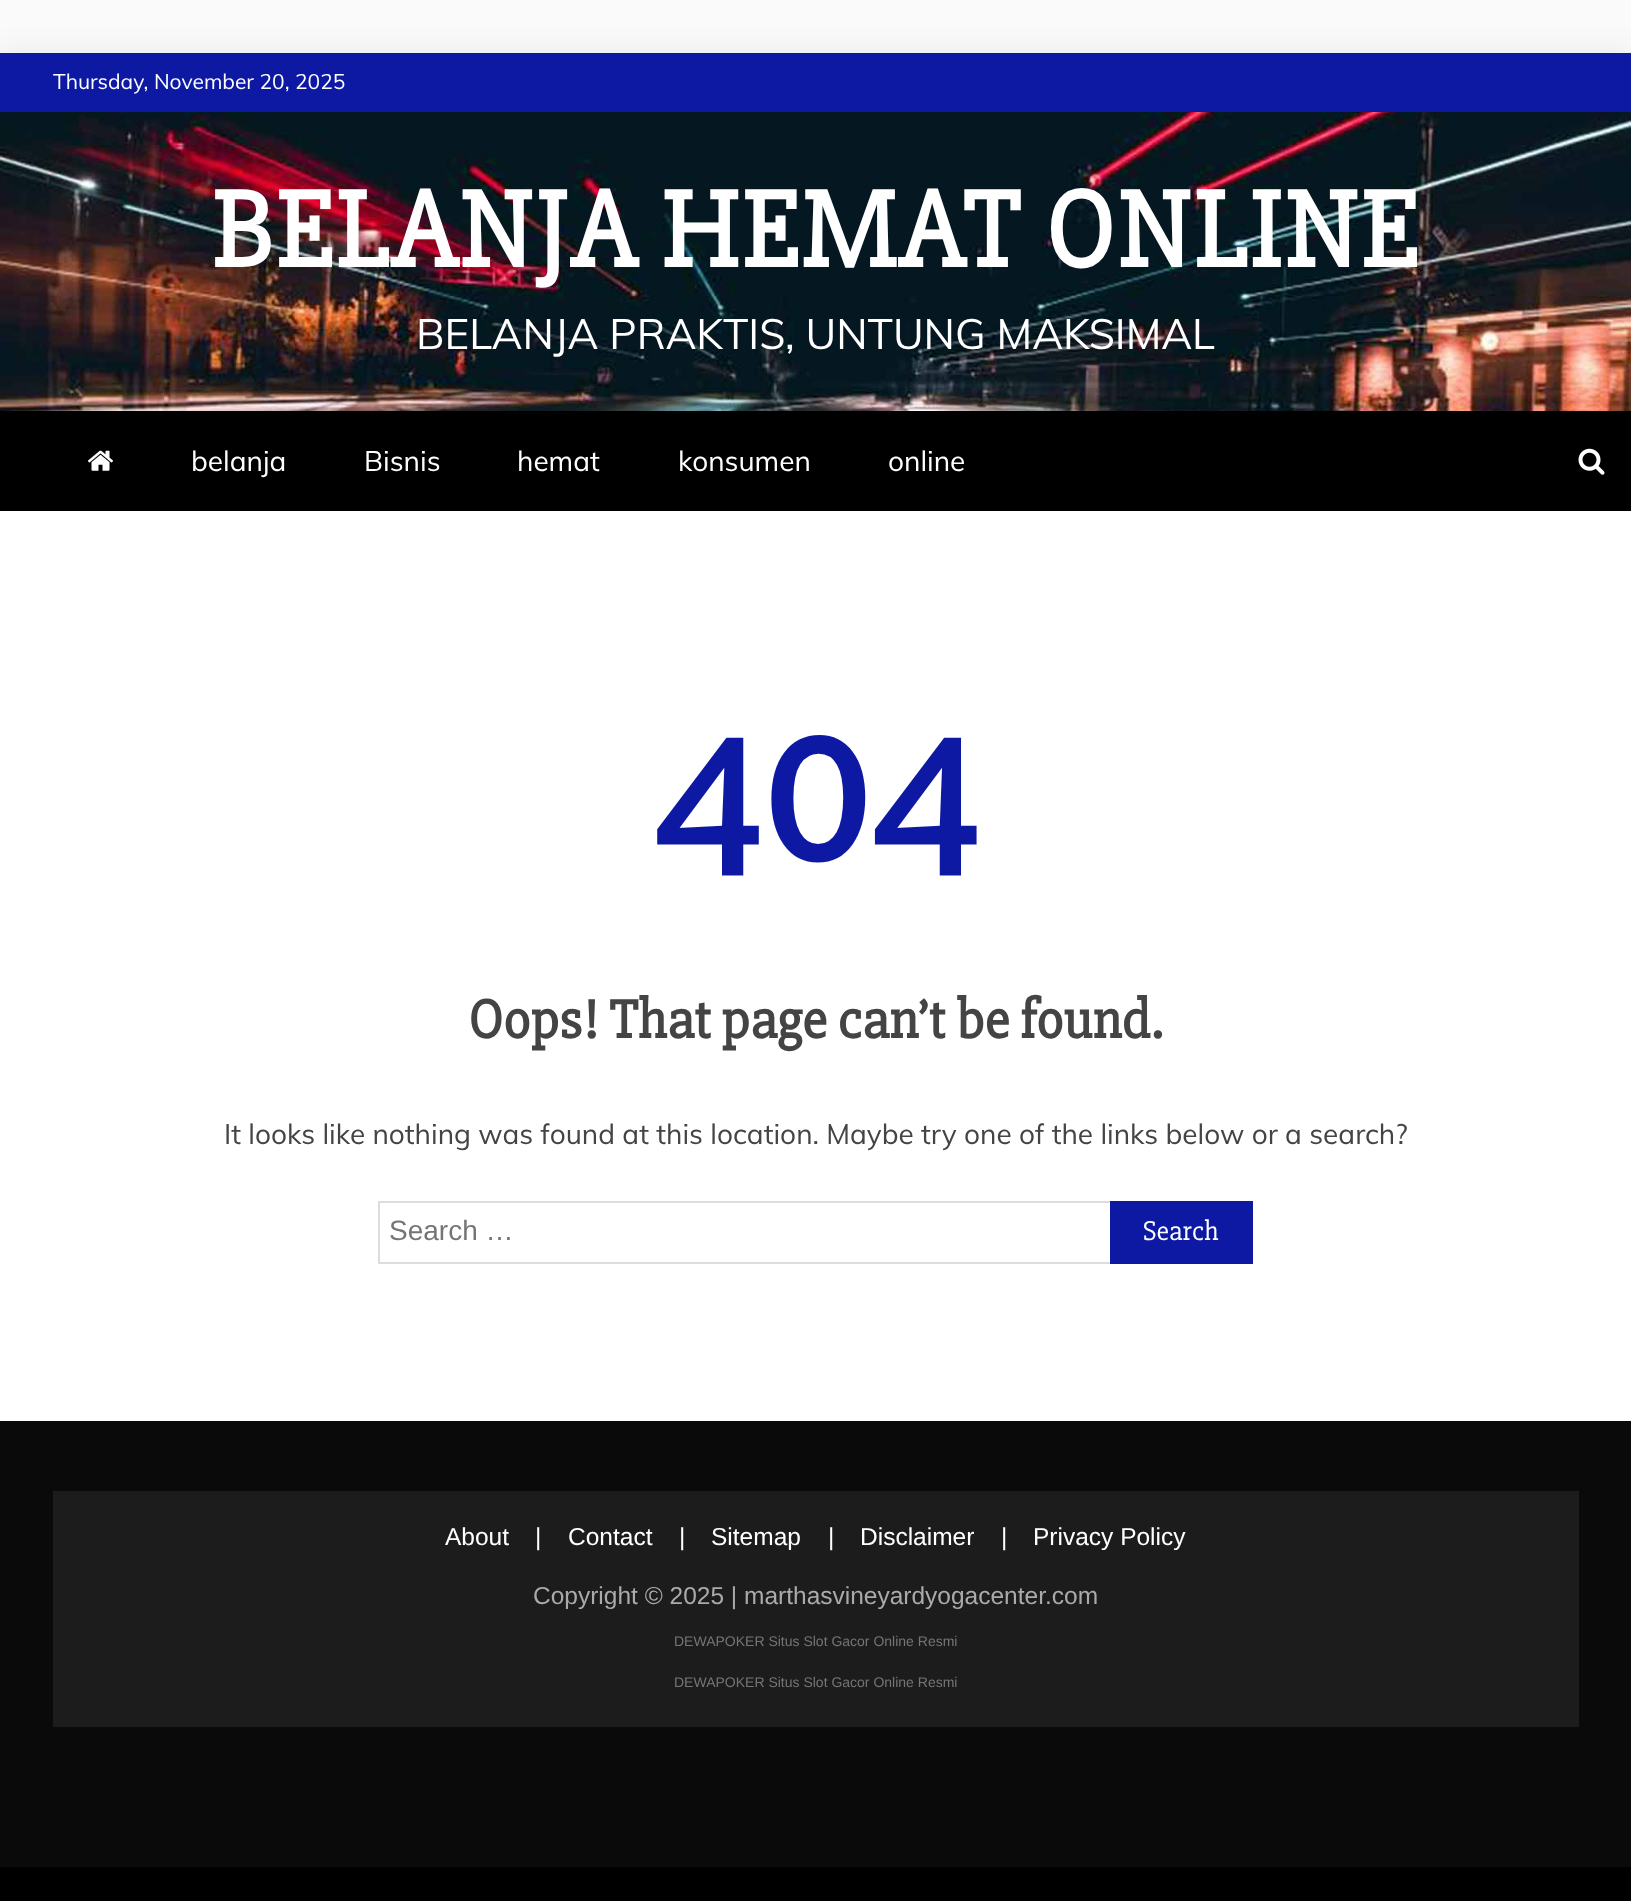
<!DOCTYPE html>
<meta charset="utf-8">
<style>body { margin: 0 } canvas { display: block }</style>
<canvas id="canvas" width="1631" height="1901"></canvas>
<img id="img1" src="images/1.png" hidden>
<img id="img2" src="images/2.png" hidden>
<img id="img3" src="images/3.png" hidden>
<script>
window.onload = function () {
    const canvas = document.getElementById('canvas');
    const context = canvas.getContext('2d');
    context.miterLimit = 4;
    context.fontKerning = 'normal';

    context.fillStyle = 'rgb(250, 250, 250)';
    context.fillRect(0, 0, 1631, 1901);
    context.fillStyle = 'rgba(0, 0, 0, 0.1)';
    context.filter = 'blur(16.5px)';
    context.beginPath();
    context.rect(-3, 58, 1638, 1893);
    context.fill();
    context.filter = 'none';
    context.fillStyle = 'rgb(255, 255, 255)';
    context.fillRect(0, 511, 1631, 910);
    context.fillStyle = 'rgb(13, 25, 163)';
    context.fillRect(0, 53, 1631, 59);
    context.drawImage(document.getElementById('img1'), 0, 112, 1631, 299);
    context.fillStyle = 'rgb(0, 0, 0)';
    context.fillRect(0, 411, 1631, 100);
    context.drawImage(document.getElementById('img2'), 88, 450, 25, 21);
    context.drawImage(document.getElementById('img3'), 1578, 448, 27, 27);
    context.strokeStyle = 'rgb(221, 221, 221)';
    context.lineWidth = 2;
    context.strokeRect(379, 1202, 873, 61);
    context.fillStyle = 'rgb(13, 25, 163)';
    context.fillRect(1110, 1201, 143, 63);
    context.fillStyle = 'rgb(10, 10, 10)';
    context.fillRect(0, 1421, 1631, 446);
    context.fillStyle = 'rgb(28, 28, 28)';
    context.fillRect(53, 1491, 1526, 236);
    context.fillStyle = 'rgb(0, 0, 0)';
    context.fillRect(0, 1867, 1631, 34);
    context.font = '21px Muli';
    context.fillStyle = 'rgb(255, 255, 255)';
    context.fillText('Thursday, November 20, 2025', 53, 89);
    context.letterSpacing = '1.75px';
    context.font = 'bold 112px "Slabo 27px"';
    context.fillText('BELANJA HEMAT ONLINE', 211, 267);
    context.letterSpacing = '0px';
    context.font = '42px Muli';
    context.fillText('BELANJA PRAKTIS, UNTUNG MAKSIMAL', 416, 349);
    context.font = '28px Muli';
    context.fillText('belanja', 191, 471);
    context.fillText('Bisnis', 364, 471);
    context.fillText('hemat', 517, 471);
    context.fillText('konsumen', 678, 471);
    context.fillText('online', 888, 471);
    context.font = 'bold 210px "Slabo 27px"';
    context.fillStyle = 'rgb(13, 25, 163)';
    context.fillText('404', 652, 860);
    context.font = 'bold 56px "Slabo 27px"';
    context.fillStyle = 'rgb(68, 68, 68)';
    context.fillText('Oops! That page can’t be found.', 468, 1038);
    context.font = '28px Muli';
    context.fillText('It looks like nothing was found at this location. Maybe try one of the links below or a search?', 224, 1144);
    context.font = '28px Liberation Sans';
    context.fillStyle = 'rgb(117, 117, 117)';
    context.fillText('Search …', 389, 1240);
    context.font = '28px "Slabo 27px"';
    context.fillStyle = 'rgb(255, 255, 255)';
    context.fillText('Search', 1143, 1240);
    context.font = '24.5px Liberation Sans';
    context.fillText('About', 445, 1545);
    context.fillText('|', 535, 1545);
    context.fillText('Contact', 568, 1545);
    context.fillText('|', 679, 1545);
    context.fillText('Sitemap', 711, 1545);
    context.fillText('|', 828, 1545);
    context.fillText('Disclaimer', 860, 1545);
    context.fillText('|', 1001, 1545);
    context.fillText('Privacy Policy', 1033, 1545);
    context.fillStyle = 'rgb(170, 170, 170)';
    context.fillText('Copyright © 2025 | marthasvineyardyogacenter.com', 533, 1604);
    context.font = '14px Liberation Sans';
    context.fillStyle = 'rgb(117, 117, 117)';
    context.fillText('DEWAPOKER Situs Slot Gacor Online Resmi', 674, 1646);
    context.fillText('DEWAPOKER Situs Slot Gacor Online Resmi', 674, 1687);
};
</script>
